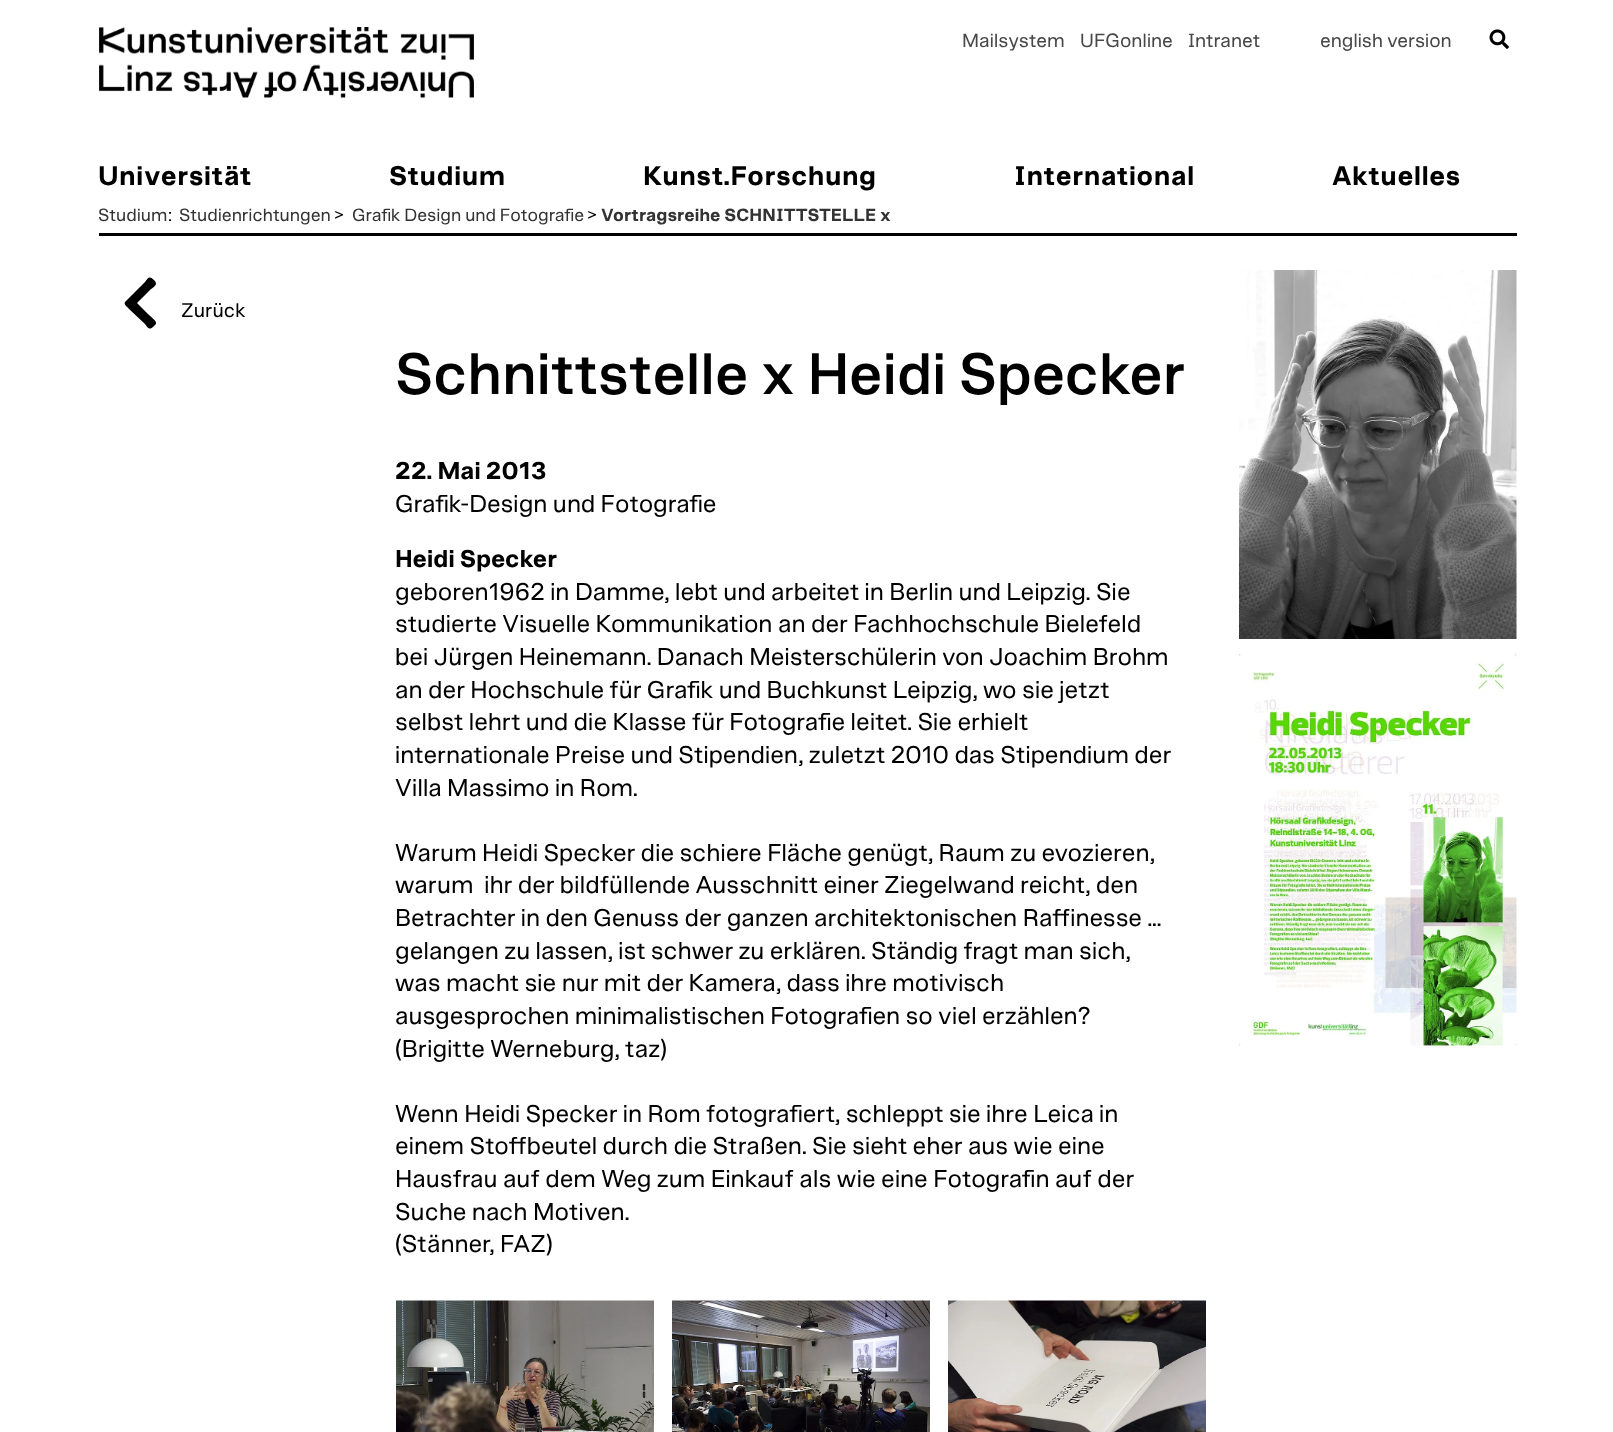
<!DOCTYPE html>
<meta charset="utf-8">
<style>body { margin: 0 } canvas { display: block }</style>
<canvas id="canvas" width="1613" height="1432"></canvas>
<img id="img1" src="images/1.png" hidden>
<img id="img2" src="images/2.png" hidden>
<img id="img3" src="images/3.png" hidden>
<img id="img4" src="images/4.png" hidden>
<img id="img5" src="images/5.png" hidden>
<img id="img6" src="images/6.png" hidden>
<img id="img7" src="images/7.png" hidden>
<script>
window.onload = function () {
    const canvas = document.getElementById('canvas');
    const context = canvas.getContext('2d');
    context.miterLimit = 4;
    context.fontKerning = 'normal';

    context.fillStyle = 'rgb(255, 255, 255)';
    context.fillRect(0, 0, 1613, 1432);
    context.drawImage(document.getElementById('img1'), 99, 27, 375, 71);
    context.drawImage(document.getElementById('img2'), 1489, 29, 20, 20);
    context.fillStyle = 'rgb(0, 0, 0)';
    context.fillRect(99, 233, 1418, 3);
    context.beginPath();
    context.moveTo(126, 301);
    context.lineTo(145, 282);
    context.bezierCurveTo(148, 278, 149, 275, 154, 280);
    context.bezierCurveTo(159, 285, 154, 286, 149, 291);
    context.lineTo(137, 303);
    context.lineTo(149, 315);
    context.bezierCurveTo(151, 317, 157, 321, 156, 324);
    context.lineTo(154, 326);
    context.bezierCurveTo(149, 331, 148, 328, 145, 324);
    context.lineTo(129, 309);
    context.bezierCurveTo(128, 307, 122, 304, 126, 301);
    context.closePath();
    context.fill();
    context.drawImage(document.getElementById('img3'), 1239, 270, 278, 369);
    context.drawImage(document.getElementById('img4'), 1239, 654, 278, 392);
    context.drawImage(document.getElementById('img5'), 396, 1300, 258, 132);
    context.drawImage(document.getElementById('img6'), 672, 1300, 258, 132);
    context.drawImage(document.getElementById('img7'), 948, 1300, 258, 132);
    context.font = '19.5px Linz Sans';
    context.fillStyle = 'rgb(72, 72, 72)';
    context.fillText('Mailsystem', 962, 47);
    context.fillText('UFGonline', 1080, 47);
    context.fillText('Intranet', 1188, 47);
    context.fillText('english version', 1320, 47);
    context.letterSpacing = '0.5px';
    context.font = 'bold 27.5px Linz Sans';
    context.fillStyle = 'rgb(0, 0, 0)';
    context.fillText('Universität', 98, 185);
    context.fillText('Studium', 389, 185);
    context.fillText('Kunst.Forschung', 643, 185);
    context.fillText('International', 1014, 185);
    context.fillText('Aktuelles', 1332, 185);
    context.letterSpacing = '0px';
    context.font = '18px Linz Sans';
    context.fillStyle = 'rgb(51, 51, 51)';
    context.fillText('Studium', 98, 221);
    context.fillStyle = 'rgb(0, 0, 0)';
    context.fillText(':', 168, 221);
    context.fillStyle = 'rgb(51, 51, 51)';
    context.fillText('Studienrichtungen', 179, 221);
    context.fillStyle = 'rgb(0, 0, 0)';
    context.fillText('>', 334, 221);
    context.fillStyle = 'rgb(51, 51, 51)';
    context.fillText('Grafik Design und Fotografie', 352, 221);
    context.fillStyle = 'rgb(0, 0, 0)';
    context.fillText('>', 587, 221);
    context.font = 'bold 18px Linz Sans';
    context.fillStyle = 'rgb(51, 51, 51)';
    context.fillText('Vortragsreihe SCHNITTSTELLE x', 601, 221);
    context.font = '20px Linz Sans';
    context.fillStyle = 'rgb(0, 0, 0)';
    context.fillText('Zurück', 181, 317);
    context.font = '500 59.4px Linz Sans';
    context.fillText('Schnittstelle x Heidi Specker', 395, 394);
    context.font = 'bold 24.75px Linz Sans';
    context.fillText('22. Mai 2013', 395, 479);
    context.font = '24.75px Linz Sans';
    context.fillText('Grafik-Design und Fotografie', 395, 512);
    context.font = 'bold 24.75px Linz Sans';
    context.fillText('Heidi Specker', 395, 567);
    context.font = '24.75px Linz Sans';
    context.fillText('geboren1962 in Damme, lebt und arbeitet in Berlin und Leipzig. Sie', 395, 600);
    context.fillText('studierte Visuelle Kommunikation an der Fachhochschule Bielefeld', 395, 632);
    context.fillText('bei Jürgen Heinemann. Danach Meisterschülerin von Joachim Brohm', 395, 665);
    context.fillText('an der Hochschule für Grafik und Buchkunst Leipzig, wo sie jetzt', 395, 698);
    context.fillText('selbst lehrt und die Klasse für Fotografie leitet. Sie erhielt', 395, 730);
    context.fillText('internationale Preise und Stipendien, zuletzt 2010 das Stipendium der', 395, 763);
    context.fillText('Villa Massimo in Rom.', 395, 796);
    context.fillText('Warum Heidi Specker die schiere Fläche genügt, Raum zu evozieren,', 395, 861);
    context.fillText('warum  ihr der bildfüllende Ausschnitt einer Ziegelwand reicht, den', 395, 893);
    context.fillText('Betrachter in den Genuss der ganzen architektonischen Raffinesse ...', 395, 926);
    context.fillText('gelangen zu lassen, ist schwer zu erklären. Ständig fragt man sich,', 395, 959);
    context.fillText('was macht sie nur mit der Kamera, dass ihre motivisch', 395, 991);
    context.fillText('ausgesprochen minimalistischen Fotografien so viel erzählen?', 395, 1024);
    context.fillText('(Brigitte Werneburg, taz)', 395, 1057);
    context.fillText('Wenn Heidi Specker in Rom fotografiert, schleppt sie ihre Leica in', 395, 1122);
    context.fillText('einem Stoffbeutel durch die Straßen. Sie sieht eher aus wie eine', 395, 1154);
    context.fillText('Hausfrau auf dem Weg zum Einkauf als wie eine Fotografin auf der', 395, 1187);
    context.fillText('Suche nach Motiven.', 395, 1220);
    context.fillText('(Stänner, FAZ)', 395, 1252);
};
</script>
